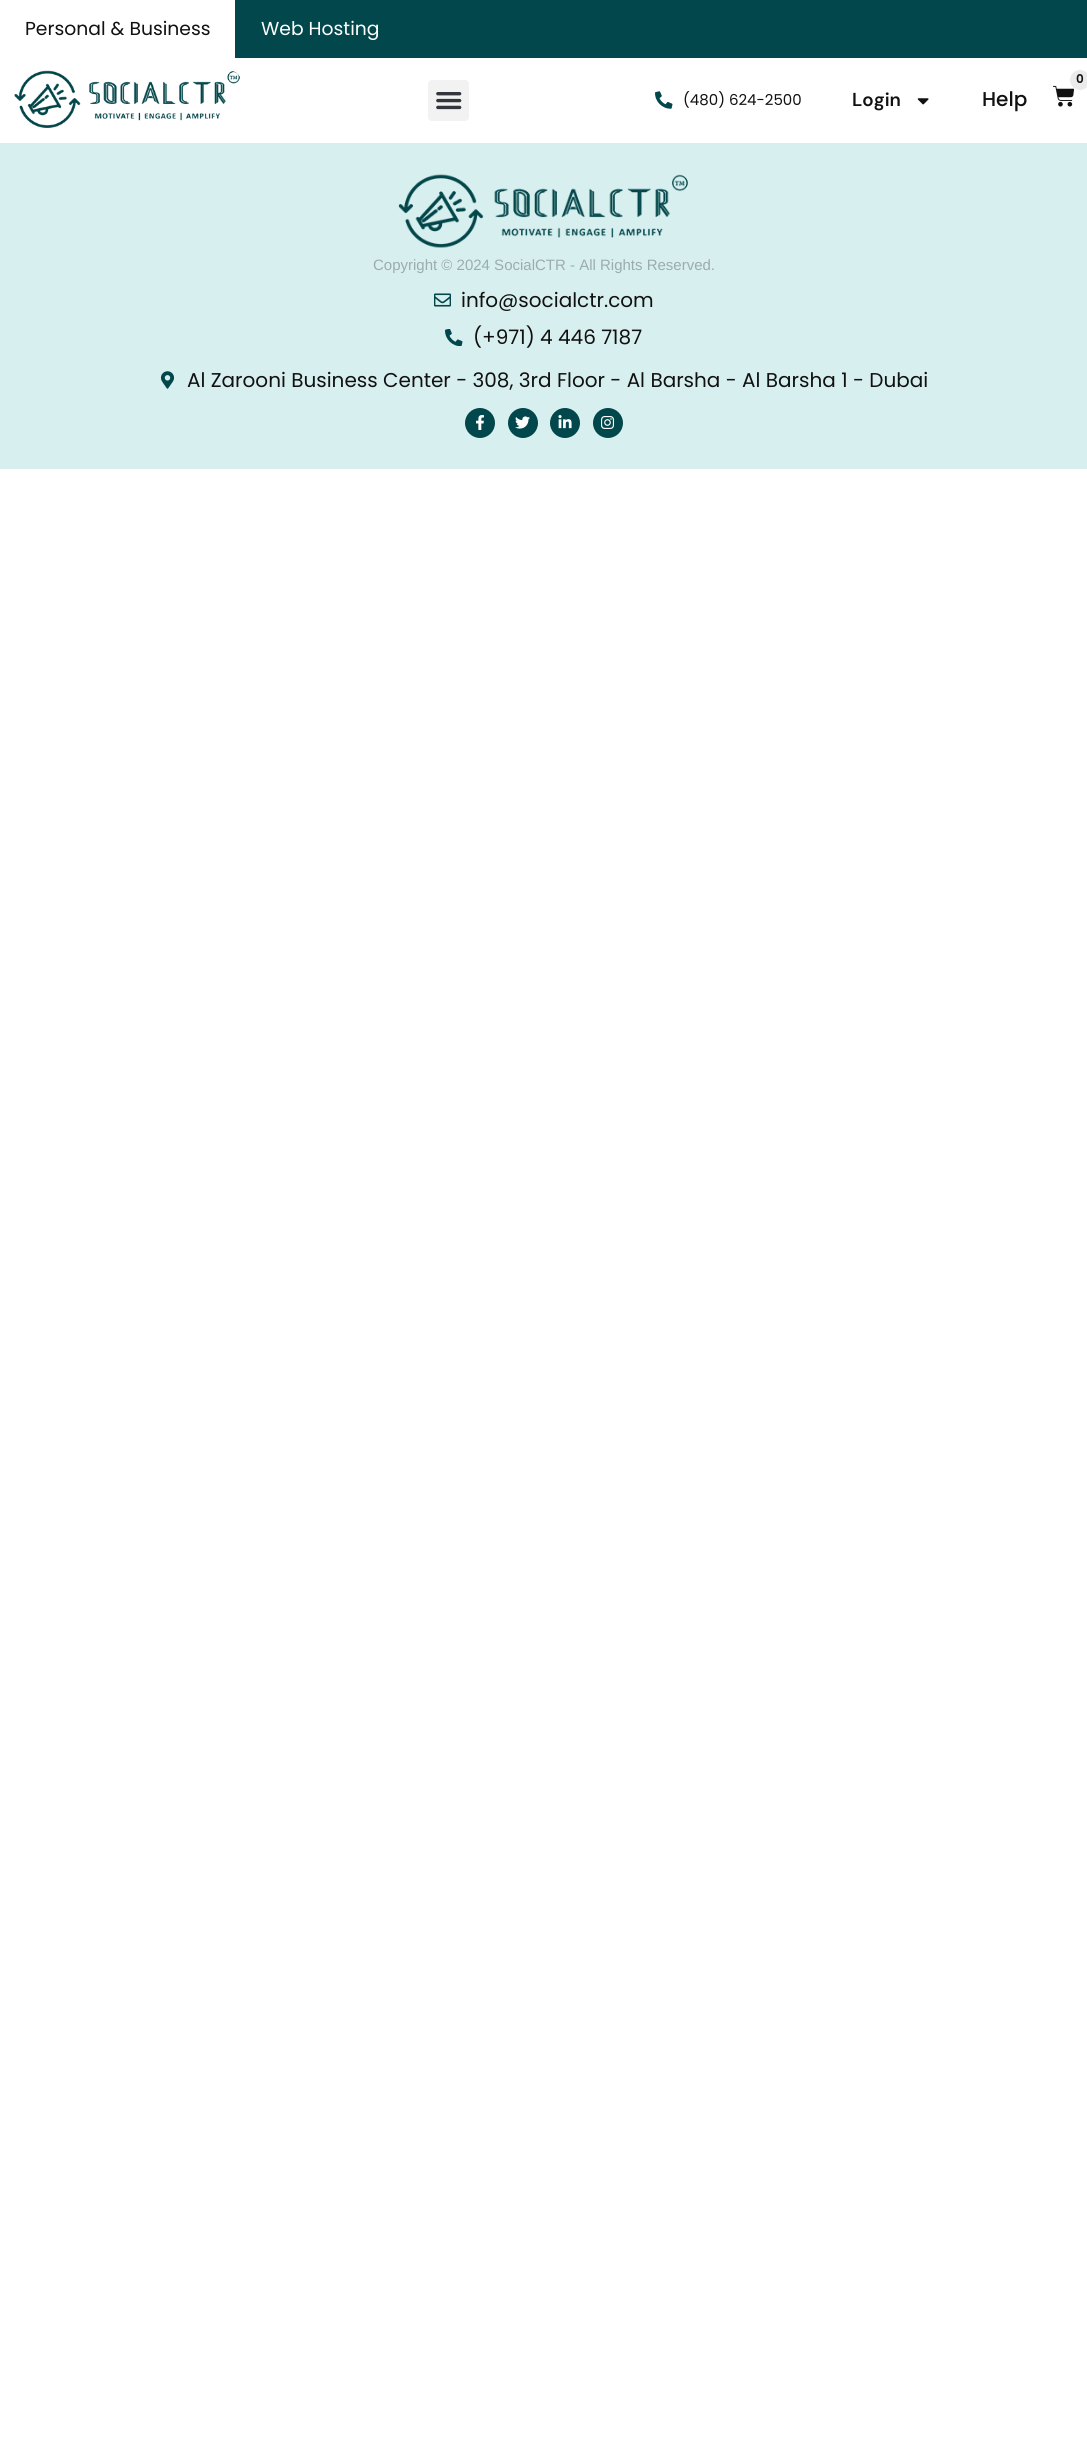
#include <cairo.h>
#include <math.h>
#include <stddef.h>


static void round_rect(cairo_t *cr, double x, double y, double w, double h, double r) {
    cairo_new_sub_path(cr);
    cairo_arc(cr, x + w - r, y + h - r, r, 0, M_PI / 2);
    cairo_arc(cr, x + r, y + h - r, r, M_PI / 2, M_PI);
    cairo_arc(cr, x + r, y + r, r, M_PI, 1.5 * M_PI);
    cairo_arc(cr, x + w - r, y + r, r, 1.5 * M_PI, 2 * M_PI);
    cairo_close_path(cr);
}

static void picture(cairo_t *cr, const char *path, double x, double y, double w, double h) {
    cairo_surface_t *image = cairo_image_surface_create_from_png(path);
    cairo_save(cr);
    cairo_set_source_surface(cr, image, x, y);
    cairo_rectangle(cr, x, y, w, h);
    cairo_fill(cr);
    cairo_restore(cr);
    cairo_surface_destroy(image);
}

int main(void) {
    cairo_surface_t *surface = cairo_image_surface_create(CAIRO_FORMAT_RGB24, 1087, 2449);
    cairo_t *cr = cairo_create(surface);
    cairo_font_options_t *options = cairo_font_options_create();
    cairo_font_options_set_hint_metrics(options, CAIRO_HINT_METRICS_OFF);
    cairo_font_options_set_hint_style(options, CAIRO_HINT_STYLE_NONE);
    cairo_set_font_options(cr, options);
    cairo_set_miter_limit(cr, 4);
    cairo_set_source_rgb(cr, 1, 1, 1);
    cairo_paint(cr);
    cairo_set_source_rgb(cr, 0.008, 0.278, 0.298);
    cairo_rectangle(cr, 235, 0, 852, 58);
    cairo_fill(cr);
    cairo_select_font_face(cr, "Poppins", CAIRO_FONT_SLANT_NORMAL, CAIRO_FONT_WEIGHT_NORMAL);
    cairo_set_font_size(cr, 18.75);
    cairo_set_source_rgb(cr, 0.067, 0.067, 0.067);
    cairo_move_to(cr, 25, 35);
    cairo_show_text(cr, "Personal & Business");
    cairo_set_source_rgb(cr, 1, 1, 1);
    cairo_move_to(cr, 261, 35);
    cairo_show_text(cr, "Web Hosting");
    picture(cr, "img1.png", 14, 70, 226, 58);
    cairo_set_source_rgb(cr, 0.949, 0.949, 0.949);
    round_rect(cr, 428, 80, 41, 41, 4);
    cairo_fill(cr);
    picture(cr, "img2.png", 436, 92, 26, 18);
    picture(cr, "img3.png", 1053, 85, 21, 22);
    cairo_set_source_rgb(cr, 0.918, 0.918, 0.918);
    cairo_arc(cr, 1080, 80, 10, 0, 2 * M_PI);
    cairo_fill(cr);
    cairo_select_font_face(cr, "Poppins SemiBold", CAIRO_FONT_SLANT_NORMAL, CAIRO_FONT_WEIGHT_NORMAL);
    cairo_set_font_size(cr, 12);
    cairo_set_source_rgb(cr, 0.067, 0.067, 0.067);
    cairo_move_to(cr, 1076, 83);
    cairo_show_text(cr, "0");
    picture(cr, "img4.png", 655, 91, 18, 18);
    cairo_select_font_face(cr, "Poppins", CAIRO_FONT_SLANT_NORMAL, CAIRO_FONT_WEIGHT_NORMAL);
    cairo_set_font_size(cr, 15);
    cairo_move_to(cr, 683, 105);
    cairo_show_text(cr, "(480) 624-2500");
    cairo_select_font_face(cr, "DM Sans SemiBold", CAIRO_FONT_SLANT_NORMAL, CAIRO_FONT_WEIGHT_NORMAL);
    cairo_set_font_size(cr, 18.75);
    cairo_move_to(cr, 852, 106);
    cairo_show_text(cr, "Login");
    picture(cr, "img5.png", 917, 98, 12, 7);
    cairo_select_font_face(cr, "Poppins Medium", CAIRO_FONT_SLANT_NORMAL, CAIRO_FONT_WEIGHT_NORMAL);
    cairo_set_font_size(cr, 20);
    cairo_move_to(cr, 982, 106);
    cairo_show_text(cr, "Help");
    cairo_set_source_rgb(cr, 0.847, 0.937, 0.937);
    cairo_rectangle(cr, 0, 143, 1087, 326);
    cairo_fill(cr);
    picture(cr, "img6.png", 398, 174, 290, 74);
    cairo_select_font_face(cr, "Liberation Sans", CAIRO_FONT_SLANT_NORMAL, CAIRO_FONT_WEIGHT_NORMAL);
    cairo_set_font_size(cr, 15);
    cairo_set_source_rgb(cr, 0.612, 0.675, 0.675);
    cairo_move_to(cr, 373, 270);
    cairo_show_text(cr, "Copyright © 2024 SocialCTR - All Rights Reserved.");
    picture(cr, "img7.png", 434, 293, 17, 14);
    cairo_select_font_face(cr, "Poppins", CAIRO_FONT_SLANT_NORMAL, CAIRO_FONT_WEIGHT_NORMAL);
    cairo_set_font_size(cr, 20);
    cairo_set_source_rgb(cr, 0.067, 0.067, 0.067);
    cairo_move_to(cr, 461, 307);
    cairo_show_text(cr, "info@socialctr.com");
    picture(cr, "img8.png", 445, 329, 18, 17);
    cairo_move_to(cr, 473, 344);
    cairo_show_text(cr, "(+971) 4 446 7187");
    picture(cr, "img9.png", 160, 371, 15, 18);
    cairo_move_to(cr, 187, 387);
    cairo_show_text(cr, "Al Zarooni Business Center - 308, 3rd Floor - Al Barsha - Al Barsha 1 - Dubai");
    cairo_set_source_rgb(cr, 0.008, 0.278, 0.298);
    cairo_new_path(cr);
    cairo_arc(cr, 480, 423, 15, 0, 2 * M_PI);
    cairo_fill(cr);
    picture(cr, "img10.png", 476, 415, 8, 15);
    cairo_arc(cr, 523, 423, 15, 0, 2 * M_PI);
    cairo_fill(cr);
    picture(cr, "img11.png", 515, 416, 15, 13);
    cairo_arc(cr, 565, 423, 15, 0, 2 * M_PI);
    cairo_fill(cr);
    picture(cr, "img12.png", 558, 415, 14, 14);
    cairo_arc(cr, 608, 423, 15, 0, 2 * M_PI);
    cairo_fill(cr);
    picture(cr, "img13.png", 601, 416, 14, 13);
    cairo_surface_write_to_png(surface, "page.png");
    cairo_font_options_destroy(options);
    cairo_destroy(cr);
    cairo_surface_destroy(surface);
    return 0;
}
